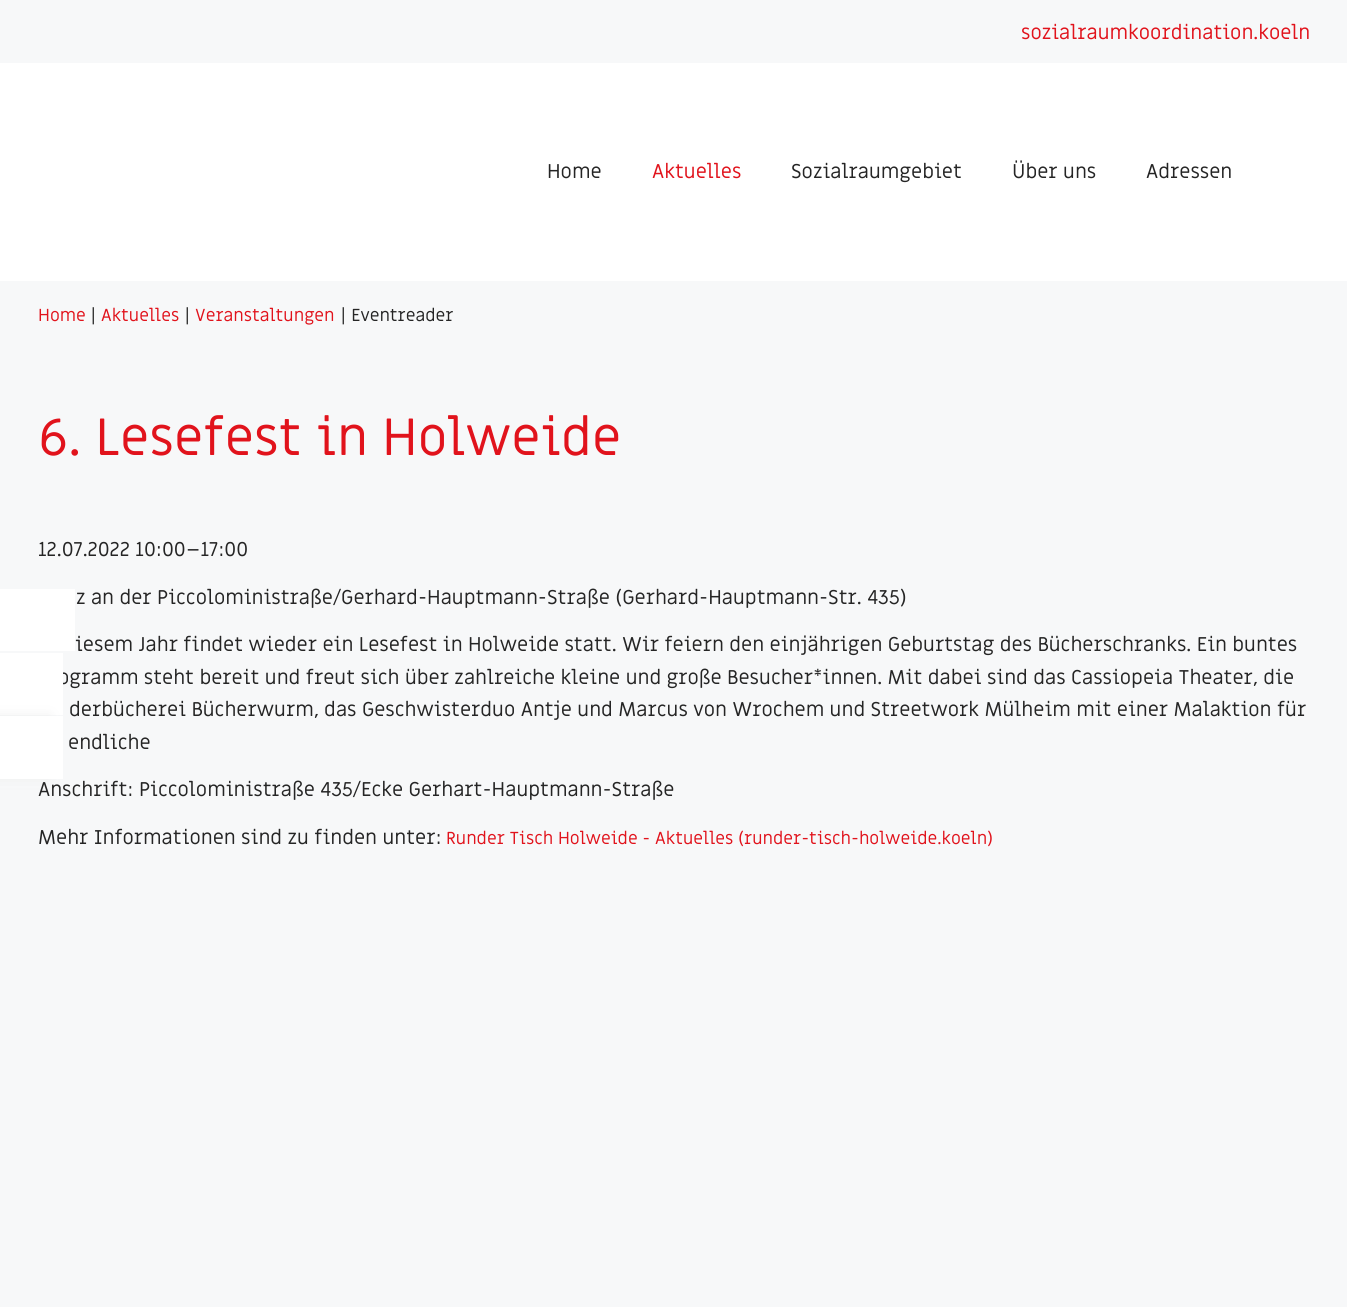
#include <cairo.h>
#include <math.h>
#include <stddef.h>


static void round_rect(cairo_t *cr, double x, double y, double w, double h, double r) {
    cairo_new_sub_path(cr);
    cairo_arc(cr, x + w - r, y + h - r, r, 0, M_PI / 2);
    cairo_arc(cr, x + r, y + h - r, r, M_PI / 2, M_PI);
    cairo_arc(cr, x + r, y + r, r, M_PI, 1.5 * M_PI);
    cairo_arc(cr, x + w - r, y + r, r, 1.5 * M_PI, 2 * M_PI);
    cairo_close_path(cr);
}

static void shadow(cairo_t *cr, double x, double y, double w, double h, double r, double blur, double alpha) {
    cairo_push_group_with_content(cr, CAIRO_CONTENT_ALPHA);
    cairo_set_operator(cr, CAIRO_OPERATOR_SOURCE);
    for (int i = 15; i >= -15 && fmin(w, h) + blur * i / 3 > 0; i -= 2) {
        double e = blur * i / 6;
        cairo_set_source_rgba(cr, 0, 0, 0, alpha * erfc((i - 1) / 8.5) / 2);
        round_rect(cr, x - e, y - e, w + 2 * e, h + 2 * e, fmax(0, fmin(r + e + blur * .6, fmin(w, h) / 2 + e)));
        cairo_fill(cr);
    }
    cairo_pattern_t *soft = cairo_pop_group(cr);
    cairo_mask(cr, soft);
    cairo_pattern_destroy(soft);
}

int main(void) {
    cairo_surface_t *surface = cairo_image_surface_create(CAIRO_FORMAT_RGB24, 1347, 1307);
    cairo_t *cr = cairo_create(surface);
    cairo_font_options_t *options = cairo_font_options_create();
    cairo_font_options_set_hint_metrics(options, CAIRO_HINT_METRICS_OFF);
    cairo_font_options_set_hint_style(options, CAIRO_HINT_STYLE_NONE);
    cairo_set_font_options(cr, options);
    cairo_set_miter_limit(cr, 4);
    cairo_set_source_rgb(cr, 0.965, 0.969, 0.976);
    cairo_paint(cr);
    cairo_select_font_face(cr, "Miriam Libre", CAIRO_FONT_SLANT_NORMAL, CAIRO_FONT_WEIGHT_NORMAL);
    cairo_set_font_size(cr, 20);
    cairo_set_source_rgb(cr, 0.882, 0.078, 0.11);
    cairo_move_to(cr, 1021, 39);
    cairo_show_text(cr, "sozialraumkoordination.koeln");
    cairo_set_source_rgb(cr, 1, 1, 1);
    cairo_rectangle(cr, 0, 589, 75, 62);
    cairo_fill(cr);
    cairo_set_source_rgb(cr, 0.145, 0.145, 0.145);
    cairo_move_to(cr, 58, 684);
    cairo_show_text(cr, "ogramm steht bereit und freut sich über zahlreiche kleine und große Besucher*innen. Mit dabei sind das Cassiopeia Theater, die");
    cairo_set_source_rgb(cr, 1, 1, 1);
    cairo_rectangle(cr, 0, 653, 63, 62);
    cairo_fill(cr);
    cairo_rectangle(cr, 0, 716, 63, 63);
    cairo_fill(cr);
    cairo_save(cr);
    cairo_set_fill_rule(cr, CAIRO_FILL_RULE_EVEN_ODD);
    cairo_new_path(cr);
    cairo_move_to(cr, 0, 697);
    cairo_line_to(cr, 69, 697);
    cairo_line_to(cr, 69, 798);
    cairo_line_to(cr, 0, 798);
    cairo_close_path(cr);
    cairo_move_to(cr, 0, 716);
    cairo_line_to(cr, 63, 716);
    cairo_line_to(cr, 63, 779);
    cairo_line_to(cr, 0, 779);
    cairo_close_path(cr);
    cairo_clip(cr);
    cairo_set_source_rgb(cr, 0.937, 0.937, 0.937);
    shadow(cr, -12, 716, 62, 63, 0, 6, 1);
    cairo_restore(cr);
    cairo_rectangle(cr, 0, 63, 1347, 218);
    cairo_fill(cr);
    cairo_set_source_rgb(cr, 0.145, 0.145, 0.145);
    cairo_move_to(cr, 547, 178);
    cairo_show_text(cr, "Home");
    cairo_set_source_rgb(cr, 0.882, 0.078, 0.11);
    cairo_move_to(cr, 652, 178);
    cairo_show_text(cr, "Aktuelles");
    cairo_set_source_rgb(cr, 0.145, 0.145, 0.145);
    cairo_move_to(cr, 791, 178);
    cairo_show_text(cr, "Sozialraumgebiet");
    cairo_move_to(cr, 1012, 178);
    cairo_show_text(cr, "Über uns");
    cairo_move_to(cr, 1146, 178);
    cairo_show_text(cr, "Adressen");
    cairo_set_font_size(cr, 17.5);
    cairo_set_source_rgb(cr, 0.882, 0.078, 0.11);
    cairo_move_to(cr, 38, 321);
    cairo_show_text(cr, "Home");
    cairo_set_source_rgb(cr, 0.145, 0.145, 0.145);
    cairo_move_to(cr, 90, 321);
    cairo_show_text(cr, "|");
    cairo_set_source_rgb(cr, 0.882, 0.078, 0.11);
    cairo_move_to(cr, 101, 321);
    cairo_show_text(cr, "Aktuelles");
    cairo_set_source_rgb(cr, 0.145, 0.145, 0.145);
    cairo_move_to(cr, 184, 321);
    cairo_show_text(cr, "|");
    cairo_set_source_rgb(cr, 0.882, 0.078, 0.11);
    cairo_move_to(cr, 195, 321);
    cairo_show_text(cr, "Veranstaltungen");
    cairo_set_source_rgb(cr, 0.145, 0.145, 0.145);
    cairo_move_to(cr, 340, 321);
    cairo_show_text(cr, "| Eventreader");
    cairo_set_font_size(cr, 52.5);
    cairo_set_source_rgb(cr, 0.882, 0.078, 0.11);
    cairo_move_to(cr, 38, 455);
    cairo_show_text(cr, "6. Lesefest in Holweide");
    cairo_set_font_size(cr, 20);
    cairo_set_source_rgb(cr, 0.145, 0.145, 0.145);
    cairo_move_to(cr, 38, 556);
    cairo_show_text(cr, "12.07.2022 10:00–17:00");
    cairo_move_to(cr, 76, 604);
    cairo_show_text(cr, "z an der Piccoloministraße/Gerhard-Hauptmann-Straße (Gerhard-Hauptmann-Str. 435)");
    cairo_move_to(cr, 75, 651);
    cairo_show_text(cr, "iesem Jahr findet wieder ein Lesefest in Holweide statt. Wir feiern den einjährigen Geburtstag des Bücherschranks. Ein buntes");
    cairo_move_to(cr, 69, 716);
    cairo_show_text(cr, "derbücherei Bücherwurm, das Geschwisterduo Antje und Marcus von Wrochem und Streetwork Mülheim mit einer Malaktion für");
    cairo_move_to(cr, 68, 749);
    cairo_show_text(cr, "endliche");
    cairo_move_to(cr, 38, 796);
    cairo_show_text(cr, "Anschrift: Piccoloministraße 435/Ecke Gerhart-Hauptmann-Straße");
    cairo_move_to(cr, 38, 844);
    cairo_show_text(cr, "Mehr Informationen sind zu finden unter:");
    cairo_set_font_size(cr, 17.5);
    cairo_set_source_rgb(cr, 0.882, 0.078, 0.11);
    cairo_move_to(cr, 446, 844);
    cairo_show_text(cr, "Runder Tisch Holweide - Aktuelles (runder-tisch-holweide.koeln)");
    cairo_surface_write_to_png(surface, "page.png");
    cairo_font_options_destroy(options);
    cairo_destroy(cr);
    cairo_surface_destroy(surface);
    return 0;
}
